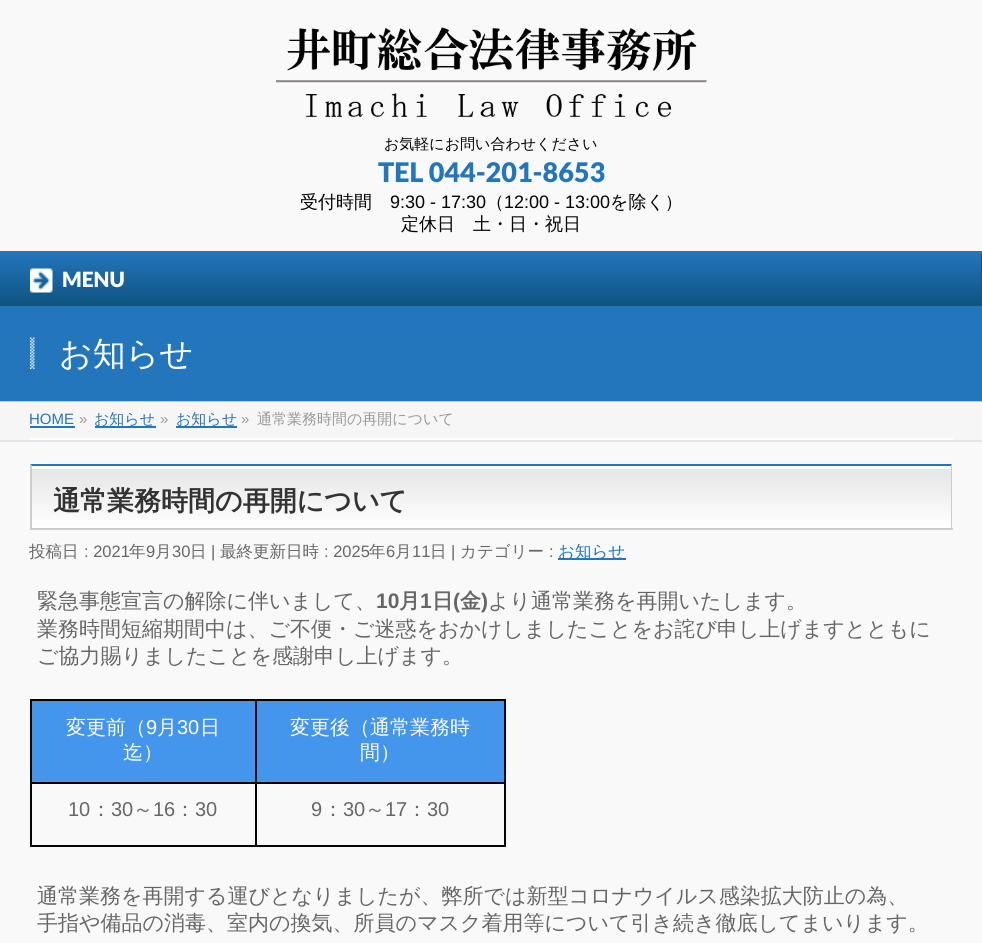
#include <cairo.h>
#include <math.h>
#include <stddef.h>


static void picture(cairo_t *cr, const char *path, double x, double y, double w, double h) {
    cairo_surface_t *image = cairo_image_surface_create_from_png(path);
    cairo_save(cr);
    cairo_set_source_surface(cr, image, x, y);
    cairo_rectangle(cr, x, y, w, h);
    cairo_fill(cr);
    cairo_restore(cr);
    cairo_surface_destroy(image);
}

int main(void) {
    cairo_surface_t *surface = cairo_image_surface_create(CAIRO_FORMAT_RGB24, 982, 943);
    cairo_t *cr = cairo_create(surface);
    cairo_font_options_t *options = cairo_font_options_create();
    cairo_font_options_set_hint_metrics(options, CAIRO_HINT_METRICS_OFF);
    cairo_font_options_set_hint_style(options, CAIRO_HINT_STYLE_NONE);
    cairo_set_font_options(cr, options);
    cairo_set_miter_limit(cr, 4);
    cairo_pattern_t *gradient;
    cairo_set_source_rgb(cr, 0.976, 0.976, 0.976);
    cairo_paint(cr);
    picture(cr, "img1.png", 276, 27, 431, 90);
    cairo_select_font_face(cr, "WenQuanYi Zen Hei Medium", CAIRO_FONT_SLANT_NORMAL, CAIRO_FONT_WEIGHT_NORMAL);
    cairo_set_font_size(cr, 15);
    cairo_set_source_rgb(cr, 0, 0, 0);
    cairo_move_to(cr, 384, 149);
    cairo_show_text(cr, "お気軽にお問い合わせください");
    cairo_select_font_face(cr, "Lato Black", CAIRO_FONT_SLANT_NORMAL, CAIRO_FONT_WEIGHT_NORMAL);
    cairo_set_font_size(cr, 27);
    cairo_set_source_rgb(cr, 0.137, 0.459, 0.737);
    cairo_move_to(cr, 378, 182);
    cairo_show_text(cr, "TEL 044-201-8653");
    cairo_select_font_face(cr, "WenQuanYi Zen Hei Medium", CAIRO_FONT_SLANT_NORMAL, CAIRO_FONT_WEIGHT_NORMAL);
    cairo_set_font_size(cr, 18);
    cairo_set_source_rgb(cr, 0, 0, 0);
    cairo_move_to(cr, 300, 208);
    cairo_show_text(cr, "受付時間");
    cairo_select_font_face(cr, "Liberation Sans", CAIRO_FONT_SLANT_NORMAL, CAIRO_FONT_WEIGHT_NORMAL);
    cairo_move_to(cr, 390, 208);
    cairo_show_text(cr, "9:30 - 17:30");
    cairo_select_font_face(cr, "WenQuanYi Zen Hei Medium", CAIRO_FONT_SLANT_NORMAL, CAIRO_FONT_WEIGHT_NORMAL);
    cairo_move_to(cr, 486, 208);
    cairo_show_text(cr, "（");
    cairo_select_font_face(cr, "Liberation Sans", CAIRO_FONT_SLANT_NORMAL, CAIRO_FONT_WEIGHT_NORMAL);
    cairo_move_to(cr, 504, 208);
    cairo_show_text(cr, "12:00 - 13:00");
    cairo_select_font_face(cr, "WenQuanYi Zen Hei Medium", CAIRO_FONT_SLANT_NORMAL, CAIRO_FONT_WEIGHT_NORMAL);
    cairo_move_to(cr, 610, 208);
    cairo_show_text(cr, "を除く）");
    cairo_move_to(cr, 401, 230);
    cairo_show_text(cr, "定休日　土・日・祝日");
    cairo_set_source_rgb(cr, 0.137, 0.459, 0.737);
    cairo_rectangle(cr, 0, 251, 982, 3);
    cairo_fill(cr);
    gradient = cairo_pattern_create_linear(491, 253, 491, 306);
    cairo_pattern_add_color_stop_rgba(gradient, 0, 0.137, 0.459, 0.737, 1);
    cairo_pattern_add_color_stop_rgba(gradient, 1, 0.059, 0.325, 0.498, 1);
    cairo_set_source(cr, gradient);
    cairo_pattern_destroy(gradient);
    cairo_rectangle(cr, 0, 254, 981, 52);
    cairo_fill(cr);
    cairo_set_source_rgb(cr, 0.059, 0.325, 0.498);
    cairo_rectangle(cr, 981, 254, 1, 52);
    cairo_fill(cr);
    picture(cr, "img2.png", 30, 268, 23, 25);
    cairo_select_font_face(cr, "Lato Black", CAIRO_FONT_SLANT_NORMAL, CAIRO_FONT_WEIGHT_NORMAL);
    cairo_set_font_size(cr, 21);
    cairo_set_source_rgb(cr, 1, 1, 1);
    cairo_move_to(cr, 62, 287);
    cairo_show_text(cr, "MENU");
    cairo_set_source_rgb(cr, 0.137, 0.459, 0.737);
    cairo_rectangle(cr, 0, 306, 982, 95);
    cairo_fill(cr);
    cairo_set_source_rgb(cr, 0.8, 0.8, 0.8);
    cairo_rectangle(cr, 0, 401, 982, 1);
    cairo_fill(cr);
    picture(cr, "img3.png", 30, 337, 5, 32);
    cairo_select_font_face(cr, "WenQuanYi Zen Hei Medium", CAIRO_FONT_SLANT_NORMAL, CAIRO_FONT_WEIGHT_NORMAL);
    cairo_set_font_size(cr, 33);
    cairo_set_source_rgb(cr, 1, 1, 1);
    cairo_move_to(cr, 59, 365);
    cairo_show_text(cr, "お知らせ");
    cairo_set_source_rgb(cr, 0.961, 0.961, 0.961);
    cairo_rectangle(cr, 0, 402, 982, 38);
    cairo_fill(cr);
    cairo_set_source_rgb(cr, 0.898, 0.898, 0.898);
    cairo_rectangle(cr, 0, 440, 982, 2);
    cairo_fill(cr);
    cairo_set_source_rgb(cr, 1, 1, 1);
    cairo_rectangle(cr, 30, 438, 923, 2);
    cairo_fill(cr);
    cairo_select_font_face(cr, "Liberation Sans", CAIRO_FONT_SLANT_NORMAL, CAIRO_FONT_WEIGHT_NORMAL);
    cairo_set_font_size(cr, 15);
    cairo_set_source_rgb(cr, 0.137, 0.459, 0.737);
    cairo_move_to(cr, 29, 424);
    cairo_show_text(cr, "HOME");
    cairo_rectangle(cr, 30, 426, 45, 2);
    cairo_fill(cr);
    cairo_set_source_rgb(cr, 0.6, 0.6, 0.6);
    cairo_move_to(cr, 79, 424);
    cairo_show_text(cr, "»");
    cairo_set_source_rgb(cr, 0.137, 0.459, 0.737);
    cairo_rectangle(cr, 95, 426, 61, 2);
    cairo_fill(cr);
    cairo_select_font_face(cr, "WenQuanYi Zen Hei Medium", CAIRO_FONT_SLANT_NORMAL, CAIRO_FONT_WEIGHT_NORMAL);
    cairo_move_to(cr, 94, 424);
    cairo_show_text(cr, "お知らせ");
    cairo_select_font_face(cr, "Liberation Sans", CAIRO_FONT_SLANT_NORMAL, CAIRO_FONT_WEIGHT_NORMAL);
    cairo_set_source_rgb(cr, 0.6, 0.6, 0.6);
    cairo_move_to(cr, 160, 424);
    cairo_show_text(cr, "»");
    cairo_set_source_rgb(cr, 0.137, 0.459, 0.737);
    cairo_rectangle(cr, 176, 426, 61, 2);
    cairo_fill(cr);
    cairo_select_font_face(cr, "WenQuanYi Zen Hei Medium", CAIRO_FONT_SLANT_NORMAL, CAIRO_FONT_WEIGHT_NORMAL);
    cairo_move_to(cr, 176, 424);
    cairo_show_text(cr, "お知らせ");
    cairo_select_font_face(cr, "Liberation Sans", CAIRO_FONT_SLANT_NORMAL, CAIRO_FONT_WEIGHT_NORMAL);
    cairo_set_source_rgb(cr, 0.6, 0.6, 0.6);
    cairo_move_to(cr, 241, 424);
    cairo_show_text(cr, "»");
    cairo_select_font_face(cr, "WenQuanYi Zen Hei Medium", CAIRO_FONT_SLANT_NORMAL, CAIRO_FONT_WEIGHT_NORMAL);
    cairo_move_to(cr, 257, 424);
    cairo_show_text(cr, "通常業務時間の再開について");
    gradient = cairo_pattern_create_linear(32, 467, 32, 528);
    cairo_pattern_add_color_stop_rgba(gradient, 0, 0.898, 0.898, 0.898, 1);
    cairo_pattern_add_color_stop_rgba(gradient, 1, 1, 1, 1, 1);
    cairo_set_source(cr, gradient);
    cairo_pattern_destroy(gradient);
    cairo_rectangle(cr, 32, 469, 919, 59);
    cairo_fill(cr);
    cairo_set_source_rgb(cr, 1, 1, 1);
    cairo_rectangle(cr, 32, 467, 919, 2);
    cairo_fill(cr);
    cairo_set_source_rgb(cr, 0.137, 0.459, 0.737);
    cairo_new_path(cr);
    cairo_move_to(cr, 30, 464);
    cairo_line_to(cr, 952, 464);
    cairo_line_to(cr, 951, 466);
    cairo_line_to(cr, 32, 466);
    cairo_close_path(cr);
    cairo_fill(cr);
    cairo_set_source_rgb(cr, 0.8, 0.8, 0.8);
    cairo_new_path(cr);
    cairo_move_to(cr, 952, 464);
    cairo_line_to(cr, 952, 530);
    cairo_line_to(cr, 951, 528);
    cairo_line_to(cr, 951, 466);
    cairo_close_path(cr);
    cairo_fill(cr);
    cairo_rectangle(cr, 30, 528, 923, 2);
    cairo_fill(cr);
    cairo_new_path(cr);
    cairo_move_to(cr, 30, 530);
    cairo_line_to(cr, 30, 464);
    cairo_line_to(cr, 32, 466);
    cairo_line_to(cr, 32, 528);
    cairo_close_path(cr);
    cairo_fill(cr);
    cairo_select_font_face(cr, "WenQuanYi Zen Hei", CAIRO_FONT_SLANT_NORMAL, CAIRO_FONT_WEIGHT_BOLD);
    cairo_set_font_size(cr, 27);
    cairo_set_source_rgb(cr, 0.2, 0.2, 0.2);
    cairo_move_to(cr, 53, 510);
    cairo_show_text(cr, "通常業務時間の再開について");
    cairo_select_font_face(cr, "WenQuanYi Zen Hei Medium", CAIRO_FONT_SLANT_NORMAL, CAIRO_FONT_WEIGHT_NORMAL);
    cairo_set_font_size(cr, 16.5);
    cairo_set_source_rgb(cr, 0.4, 0.4, 0.4);
    cairo_move_to(cr, 29, 557);
    cairo_show_text(cr, "投稿日");
    cairo_select_font_face(cr, "Liberation Sans", CAIRO_FONT_SLANT_NORMAL, CAIRO_FONT_WEIGHT_NORMAL);
    cairo_move_to(cr, 84, 557);
    cairo_show_text(cr, ": 2021");
    cairo_select_font_face(cr, "WenQuanYi Zen Hei Medium", CAIRO_FONT_SLANT_NORMAL, CAIRO_FONT_WEIGHT_NORMAL);
    cairo_move_to(cr, 129, 557);
    cairo_show_text(cr, "年");
    cairo_select_font_face(cr, "Liberation Sans", CAIRO_FONT_SLANT_NORMAL, CAIRO_FONT_WEIGHT_NORMAL);
    cairo_move_to(cr, 146, 557);
    cairo_show_text(cr, "9");
    cairo_select_font_face(cr, "WenQuanYi Zen Hei Medium", CAIRO_FONT_SLANT_NORMAL, CAIRO_FONT_WEIGHT_NORMAL);
    cairo_move_to(cr, 155, 557);
    cairo_show_text(cr, "月");
    cairo_select_font_face(cr, "Liberation Sans", CAIRO_FONT_SLANT_NORMAL, CAIRO_FONT_WEIGHT_NORMAL);
    cairo_move_to(cr, 172, 557);
    cairo_show_text(cr, "30");
    cairo_select_font_face(cr, "WenQuanYi Zen Hei Medium", CAIRO_FONT_SLANT_NORMAL, CAIRO_FONT_WEIGHT_NORMAL);
    cairo_move_to(cr, 190, 557);
    cairo_show_text(cr, "日");
    cairo_select_font_face(cr, "Liberation Sans", CAIRO_FONT_SLANT_NORMAL, CAIRO_FONT_WEIGHT_NORMAL);
    cairo_move_to(cr, 211, 557);
    cairo_show_text(cr, "|");
    cairo_select_font_face(cr, "WenQuanYi Zen Hei Medium", CAIRO_FONT_SLANT_NORMAL, CAIRO_FONT_WEIGHT_NORMAL);
    cairo_move_to(cr, 220, 557);
    cairo_show_text(cr, "最終更新日時");
    cairo_select_font_face(cr, "Liberation Sans", CAIRO_FONT_SLANT_NORMAL, CAIRO_FONT_WEIGHT_NORMAL);
    cairo_move_to(cr, 324, 557);
    cairo_show_text(cr, ": 2025");
    cairo_select_font_face(cr, "WenQuanYi Zen Hei Medium", CAIRO_FONT_SLANT_NORMAL, CAIRO_FONT_WEIGHT_NORMAL);
    cairo_move_to(cr, 369, 557);
    cairo_show_text(cr, "年");
    cairo_select_font_face(cr, "Liberation Sans", CAIRO_FONT_SLANT_NORMAL, CAIRO_FONT_WEIGHT_NORMAL);
    cairo_move_to(cr, 386, 557);
    cairo_show_text(cr, "6");
    cairo_select_font_face(cr, "WenQuanYi Zen Hei Medium", CAIRO_FONT_SLANT_NORMAL, CAIRO_FONT_WEIGHT_NORMAL);
    cairo_move_to(cr, 395, 557);
    cairo_show_text(cr, "月");
    cairo_select_font_face(cr, "Liberation Sans", CAIRO_FONT_SLANT_NORMAL, CAIRO_FONT_WEIGHT_NORMAL);
    cairo_move_to(cr, 412, 557);
    cairo_show_text(cr, "11");
    cairo_select_font_face(cr, "WenQuanYi Zen Hei Medium", CAIRO_FONT_SLANT_NORMAL, CAIRO_FONT_WEIGHT_NORMAL);
    cairo_move_to(cr, 430, 557);
    cairo_show_text(cr, "日");
    cairo_select_font_face(cr, "Liberation Sans", CAIRO_FONT_SLANT_NORMAL, CAIRO_FONT_WEIGHT_NORMAL);
    cairo_move_to(cr, 451, 557);
    cairo_show_text(cr, "|");
    cairo_select_font_face(cr, "WenQuanYi Zen Hei Medium", CAIRO_FONT_SLANT_NORMAL, CAIRO_FONT_WEIGHT_NORMAL);
    cairo_move_to(cr, 460, 557);
    cairo_show_text(cr, "カテゴリー");
    cairo_select_font_face(cr, "Liberation Sans", CAIRO_FONT_SLANT_NORMAL, CAIRO_FONT_WEIGHT_NORMAL);
    cairo_move_to(cr, 549, 557);
    cairo_show_text(cr, ":");
    cairo_set_source_rgb(cr, 0.137, 0.459, 0.737);
    cairo_rectangle(cr, 558, 558, 68, 2);
    cairo_fill(cr);
    cairo_select_font_face(cr, "WenQuanYi Zen Hei Medium", CAIRO_FONT_SLANT_NORMAL, CAIRO_FONT_WEIGHT_NORMAL);
    cairo_move_to(cr, 558, 557);
    cairo_show_text(cr, "お知らせ");
    cairo_set_font_size(cr, 21);
    cairo_set_source_rgb(cr, 0.4, 0.4, 0.4);
    cairo_move_to(cr, 37, 608);
    cairo_show_text(cr, "緊急事態宣言の解除に伴いまして、");
    cairo_select_font_face(cr, "Liberation Sans", CAIRO_FONT_SLANT_NORMAL, CAIRO_FONT_WEIGHT_BOLD);
    cairo_move_to(cr, 376, 608);
    cairo_show_text(cr, "10");
    cairo_select_font_face(cr, "WenQuanYi Zen Hei", CAIRO_FONT_SLANT_NORMAL, CAIRO_FONT_WEIGHT_BOLD);
    cairo_move_to(cr, 399, 608);
    cairo_show_text(cr, "月");
    cairo_select_font_face(cr, "Liberation Sans", CAIRO_FONT_SLANT_NORMAL, CAIRO_FONT_WEIGHT_BOLD);
    cairo_move_to(cr, 420, 608);
    cairo_show_text(cr, "1");
    cairo_select_font_face(cr, "WenQuanYi Zen Hei", CAIRO_FONT_SLANT_NORMAL, CAIRO_FONT_WEIGHT_BOLD);
    cairo_move_to(cr, 432, 608);
    cairo_show_text(cr, "日");
    cairo_select_font_face(cr, "Liberation Sans", CAIRO_FONT_SLANT_NORMAL, CAIRO_FONT_WEIGHT_BOLD);
    cairo_move_to(cr, 453, 608);
    cairo_show_text(cr, "(");
    cairo_select_font_face(cr, "WenQuanYi Zen Hei", CAIRO_FONT_SLANT_NORMAL, CAIRO_FONT_WEIGHT_BOLD);
    cairo_move_to(cr, 460, 608);
    cairo_show_text(cr, "金");
    cairo_select_font_face(cr, "Liberation Sans", CAIRO_FONT_SLANT_NORMAL, CAIRO_FONT_WEIGHT_BOLD);
    cairo_move_to(cr, 481, 608);
    cairo_show_text(cr, ")");
    cairo_select_font_face(cr, "WenQuanYi Zen Hei Medium", CAIRO_FONT_SLANT_NORMAL, CAIRO_FONT_WEIGHT_NORMAL);
    cairo_move_to(cr, 488, 608);
    cairo_show_text(cr, "より通常業務を再開いたします。");
    cairo_move_to(cr, 37, 636);
    cairo_show_text(cr, "業務時間短縮期間中は、ご不便・ご迷惑をおかけしましたことをお詫び申し上げますとともに");
    cairo_move_to(cr, 37, 663);
    cairo_show_text(cr, "ご協力賜りましたことを感謝申し上げます。");
    cairo_set_source_rgb(cr, 0.267, 0.584, 0.922);
    cairo_rectangle(cr, 32, 701, 223, 81);
    cairo_fill(cr);
    cairo_set_source_rgb(cr, 0.02, 0.02, 0.02);
    cairo_rectangle(cr, 255, 699, 251, 2);
    cairo_fill(cr);
    cairo_rectangle(cr, 255, 782, 251, 2);
    cairo_fill(cr);
    cairo_rectangle(cr, 504, 782, 2, 64);
    cairo_fill(cr);
    cairo_rectangle(cr, 255, 845, 251, 2);
    cairo_fill(cr);
    cairo_rectangle(cr, 255, 782, 2, 64);
    cairo_fill(cr);
    cairo_rectangle(cr, 30, 782, 227, 2);
    cairo_fill(cr);
    cairo_rectangle(cr, 255, 699, 2, 84);
    cairo_fill(cr);
    cairo_rectangle(cr, 30, 699, 227, 2);
    cairo_fill(cr);
    cairo_rectangle(cr, 30, 845, 227, 2);
    cairo_fill(cr);
    cairo_rectangle(cr, 30, 782, 2, 64);
    cairo_fill(cr);
    cairo_rectangle(cr, 30, 699, 2, 84);
    cairo_fill(cr);
    cairo_set_font_size(cr, 20);
    cairo_set_source_rgb(cr, 1, 1, 1);
    cairo_move_to(cr, 66, 734);
    cairo_show_text(cr, "変更前（");
    cairo_select_font_face(cr, "Liberation Sans", CAIRO_FONT_SLANT_NORMAL, CAIRO_FONT_WEIGHT_NORMAL);
    cairo_move_to(cr, 146, 734);
    cairo_show_text(cr, "9");
    cairo_select_font_face(cr, "WenQuanYi Zen Hei Medium", CAIRO_FONT_SLANT_NORMAL, CAIRO_FONT_WEIGHT_NORMAL);
    cairo_move_to(cr, 157, 734);
    cairo_show_text(cr, "月");
    cairo_select_font_face(cr, "Liberation Sans", CAIRO_FONT_SLANT_NORMAL, CAIRO_FONT_WEIGHT_NORMAL);
    cairo_move_to(cr, 177, 734);
    cairo_show_text(cr, "30");
    cairo_select_font_face(cr, "WenQuanYi Zen Hei Medium", CAIRO_FONT_SLANT_NORMAL, CAIRO_FONT_WEIGHT_NORMAL);
    cairo_move_to(cr, 200, 734);
    cairo_show_text(cr, "日");
    cairo_move_to(cr, 123, 759);
    cairo_show_text(cr, "迄）");
    cairo_set_source_rgb(cr, 0.267, 0.584, 0.922);
    cairo_rectangle(cr, 257, 701, 247, 81);
    cairo_fill(cr);
    cairo_set_source_rgb(cr, 0.02, 0.02, 0.02);
    cairo_rectangle(cr, 504, 699, 2, 84);
    cairo_fill(cr);
    cairo_set_source_rgb(cr, 1, 1, 1);
    cairo_move_to(cr, 290, 734);
    cairo_show_text(cr, "変更後（通常業務時");
    cairo_move_to(cr, 360, 759);
    cairo_show_text(cr, "間）");
    cairo_select_font_face(cr, "Liberation Sans", CAIRO_FONT_SLANT_NORMAL, CAIRO_FONT_WEIGHT_NORMAL);
    cairo_set_source_rgb(cr, 0.4, 0.4, 0.4);
    cairo_move_to(cr, 68, 816);
    cairo_show_text(cr, "10");
    cairo_select_font_face(cr, "WenQuanYi Zen Hei Medium", CAIRO_FONT_SLANT_NORMAL, CAIRO_FONT_WEIGHT_NORMAL);
    cairo_move_to(cr, 91, 816);
    cairo_show_text(cr, "：");
    cairo_select_font_face(cr, "Liberation Sans", CAIRO_FONT_SLANT_NORMAL, CAIRO_FONT_WEIGHT_NORMAL);
    cairo_move_to(cr, 111, 816);
    cairo_show_text(cr, "30");
    cairo_select_font_face(cr, "WenQuanYi Zen Hei Medium", CAIRO_FONT_SLANT_NORMAL, CAIRO_FONT_WEIGHT_NORMAL);
    cairo_move_to(cr, 133, 816);
    cairo_show_text(cr, "～");
    cairo_select_font_face(cr, "Liberation Sans", CAIRO_FONT_SLANT_NORMAL, CAIRO_FONT_WEIGHT_NORMAL);
    cairo_move_to(cr, 153, 816);
    cairo_show_text(cr, "16");
    cairo_select_font_face(cr, "WenQuanYi Zen Hei Medium", CAIRO_FONT_SLANT_NORMAL, CAIRO_FONT_WEIGHT_NORMAL);
    cairo_move_to(cr, 175, 816);
    cairo_show_text(cr, "：");
    cairo_select_font_face(cr, "Liberation Sans", CAIRO_FONT_SLANT_NORMAL, CAIRO_FONT_WEIGHT_NORMAL);
    cairo_move_to(cr, 195, 816);
    cairo_show_text(cr, "30");
    cairo_move_to(cr, 311, 816);
    cairo_show_text(cr, "9");
    cairo_select_font_face(cr, "WenQuanYi Zen Hei Medium", CAIRO_FONT_SLANT_NORMAL, CAIRO_FONT_WEIGHT_NORMAL);
    cairo_move_to(cr, 323, 816);
    cairo_show_text(cr, "：");
    cairo_select_font_face(cr, "Liberation Sans", CAIRO_FONT_SLANT_NORMAL, CAIRO_FONT_WEIGHT_NORMAL);
    cairo_move_to(cr, 343, 816);
    cairo_show_text(cr, "30");
    cairo_select_font_face(cr, "WenQuanYi Zen Hei Medium", CAIRO_FONT_SLANT_NORMAL, CAIRO_FONT_WEIGHT_NORMAL);
    cairo_move_to(cr, 365, 816);
    cairo_show_text(cr, "～");
    cairo_select_font_face(cr, "Liberation Sans", CAIRO_FONT_SLANT_NORMAL, CAIRO_FONT_WEIGHT_NORMAL);
    cairo_move_to(cr, 385, 816);
    cairo_show_text(cr, "17");
    cairo_select_font_face(cr, "WenQuanYi Zen Hei Medium", CAIRO_FONT_SLANT_NORMAL, CAIRO_FONT_WEIGHT_NORMAL);
    cairo_move_to(cr, 407, 816);
    cairo_show_text(cr, "：");
    cairo_select_font_face(cr, "Liberation Sans", CAIRO_FONT_SLANT_NORMAL, CAIRO_FONT_WEIGHT_NORMAL);
    cairo_move_to(cr, 427, 816);
    cairo_show_text(cr, "30");
    cairo_select_font_face(cr, "WenQuanYi Zen Hei Medium", CAIRO_FONT_SLANT_NORMAL, CAIRO_FONT_WEIGHT_NORMAL);
    cairo_set_font_size(cr, 21);
    cairo_move_to(cr, 37, 903);
    cairo_show_text(cr, "通常業務を再開する運びとなりましたが、弊所では新型コロナウイルス感染拡大防止の為、");
    cairo_move_to(cr, 37, 930);
    cairo_show_text(cr, "手指や備品の消毒、室内の換気、所員のマスク着用等について引き続き徹底してまいります。");
    cairo_surface_write_to_png(surface, "page.png");
    cairo_font_options_destroy(options);
    cairo_destroy(cr);
    cairo_surface_destroy(surface);
    return 0;
}
